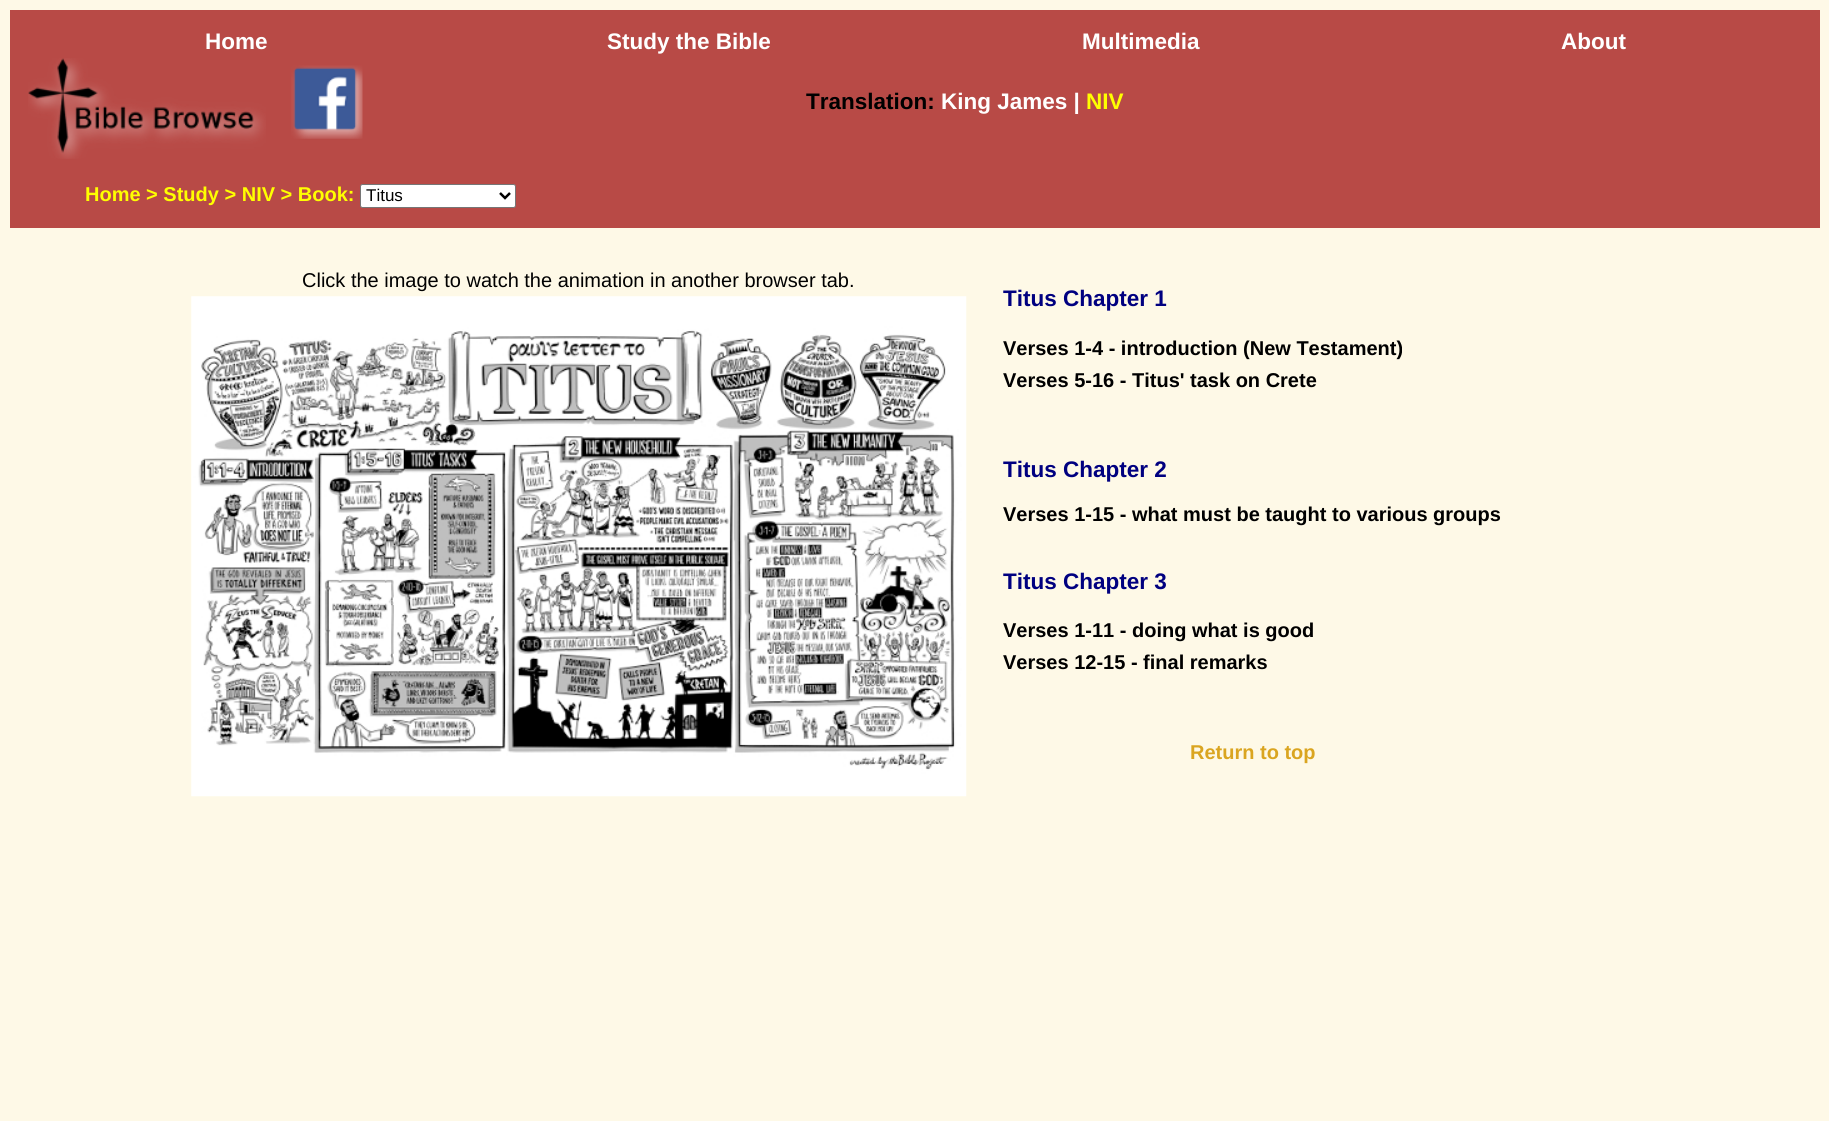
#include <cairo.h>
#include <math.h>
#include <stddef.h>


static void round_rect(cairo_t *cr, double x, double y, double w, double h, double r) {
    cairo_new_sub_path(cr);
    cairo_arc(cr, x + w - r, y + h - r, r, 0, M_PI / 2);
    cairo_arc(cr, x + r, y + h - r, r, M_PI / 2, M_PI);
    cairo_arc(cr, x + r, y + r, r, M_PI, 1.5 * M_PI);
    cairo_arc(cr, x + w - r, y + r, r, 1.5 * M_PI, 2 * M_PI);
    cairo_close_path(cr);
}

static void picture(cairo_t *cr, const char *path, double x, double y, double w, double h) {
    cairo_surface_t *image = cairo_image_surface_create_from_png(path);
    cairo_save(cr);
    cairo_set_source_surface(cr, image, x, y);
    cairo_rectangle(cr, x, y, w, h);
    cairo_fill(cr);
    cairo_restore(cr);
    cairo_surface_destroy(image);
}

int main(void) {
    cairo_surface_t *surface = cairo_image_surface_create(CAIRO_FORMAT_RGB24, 1829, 1121);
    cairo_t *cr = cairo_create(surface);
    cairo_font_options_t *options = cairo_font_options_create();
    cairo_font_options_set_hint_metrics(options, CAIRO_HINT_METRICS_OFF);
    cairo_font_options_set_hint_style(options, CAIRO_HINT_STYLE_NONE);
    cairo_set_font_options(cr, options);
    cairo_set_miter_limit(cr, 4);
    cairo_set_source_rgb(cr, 0.996, 0.976, 0.906);
    cairo_paint(cr);
    cairo_set_source_rgb(cr, 0.722, 0.29, 0.275);
    cairo_rectangle(cr, 10, 10, 1810, 218);
    cairo_fill(cr);
    cairo_select_font_face(cr, "Liberation Sans", CAIRO_FONT_SLANT_NORMAL, CAIRO_FONT_WEIGHT_BOLD);
    cairo_set_font_size(cr, 22.5);
    cairo_set_source_rgb(cr, 1, 1, 1);
    cairo_move_to(cr, 205, 49);
    cairo_show_text(cr, "Home");
    cairo_move_to(cr, 607, 49);
    cairo_show_text(cr, "Study the Bible");
    cairo_move_to(cr, 1082, 49);
    cairo_show_text(cr, "Multimedia");
    cairo_move_to(cr, 1561, 49);
    cairo_show_text(cr, "About");
    picture(cr, "img1.png", 28, 58, 238, 101);
    picture(cr, "img2.png", 291, 65, 72, 74);
    cairo_set_source_rgb(cr, 0, 0, 0);
    cairo_move_to(cr, 806, 109);
    cairo_show_text(cr, "Translation:");
    cairo_set_source_rgb(cr, 1, 1, 1);
    cairo_move_to(cr, 941, 109);
    cairo_show_text(cr, "King James |");
    cairo_set_source_rgb(cr, 1, 1, 0);
    cairo_move_to(cr, 1086, 109);
    cairo_show_text(cr, "NIV");
    cairo_set_font_size(cr, 20);
    cairo_move_to(cr, 85, 201);
    cairo_show_text(cr, "Home > Study > NIV > Book:");
    cairo_set_source_rgb(cr, 1, 1, 1);
    round_rect(cr, 360.5, 184.5, 155, 23, 2);
    cairo_fill_preserve(cr);
    cairo_set_source_rgb(cr, 0.463, 0.463, 0.463);
    cairo_set_line_width(cr, 1);
    cairo_stroke(cr);
    cairo_new_path(cr);
    cairo_move_to(cr, 500, 193);
    cairo_line_to(cr, 505, 198);
    cairo_line_to(cr, 510, 193);
    cairo_set_source_rgb(cr, 0, 0, 0);
    cairo_set_line_width(cr, 2.5);
    cairo_stroke(cr);
    cairo_select_font_face(cr, "Liberation Sans", CAIRO_FONT_SLANT_NORMAL, CAIRO_FONT_WEIGHT_NORMAL);
    cairo_set_font_size(cr, 17);
    cairo_move_to(cr, 366, 201);
    cairo_show_text(cr, "Titus");
    cairo_set_font_size(cr, 20);
    cairo_move_to(cr, 302, 287);
    cairo_show_text(cr, "Click the image to watch the animation in another browser tab.");
    picture(cr, "img3.png", 191, 296, 776, 501);
    cairo_select_font_face(cr, "Liberation Sans", CAIRO_FONT_SLANT_NORMAL, CAIRO_FONT_WEIGHT_BOLD);
    cairo_set_font_size(cr, 22.5);
    cairo_set_source_rgb(cr, 0, 0, 0.502);
    cairo_move_to(cr, 1003, 306);
    cairo_show_text(cr, "Titus Chapter 1");
    cairo_set_font_size(cr, 20);
    cairo_set_source_rgb(cr, 0, 0, 0);
    cairo_move_to(cr, 1003, 355);
    cairo_show_text(cr, "Verses 1-4 - introduction (New Testament)");
    cairo_move_to(cr, 1003, 387);
    cairo_show_text(cr, "Verses 5-16 - Titus' task on Crete");
    cairo_set_font_size(cr, 22.5);
    cairo_set_source_rgb(cr, 0, 0, 0.502);
    cairo_move_to(cr, 1003, 477);
    cairo_show_text(cr, "Titus Chapter 2");
    cairo_set_font_size(cr, 20);
    cairo_set_source_rgb(cr, 0, 0, 0);
    cairo_move_to(cr, 1003, 521);
    cairo_show_text(cr, "Verses 1-15 - what must be taught to various groups");
    cairo_set_font_size(cr, 22.5);
    cairo_set_source_rgb(cr, 0, 0, 0.502);
    cairo_move_to(cr, 1003, 589);
    cairo_show_text(cr, "Titus Chapter 3");
    cairo_set_font_size(cr, 20);
    cairo_set_source_rgb(cr, 0, 0, 0);
    cairo_move_to(cr, 1003, 637);
    cairo_show_text(cr, "Verses 1-11 - doing what is good");
    cairo_move_to(cr, 1003, 669);
    cairo_show_text(cr, "Verses 12-15 - final remarks");
    cairo_set_source_rgb(cr, 0.855, 0.647, 0.125);
    cairo_move_to(cr, 1190, 759);
    cairo_show_text(cr, "Return to top");
    cairo_surface_write_to_png(surface, "page.png");
    cairo_font_options_destroy(options);
    cairo_destroy(cr);
    cairo_surface_destroy(surface);
    return 0;
}
